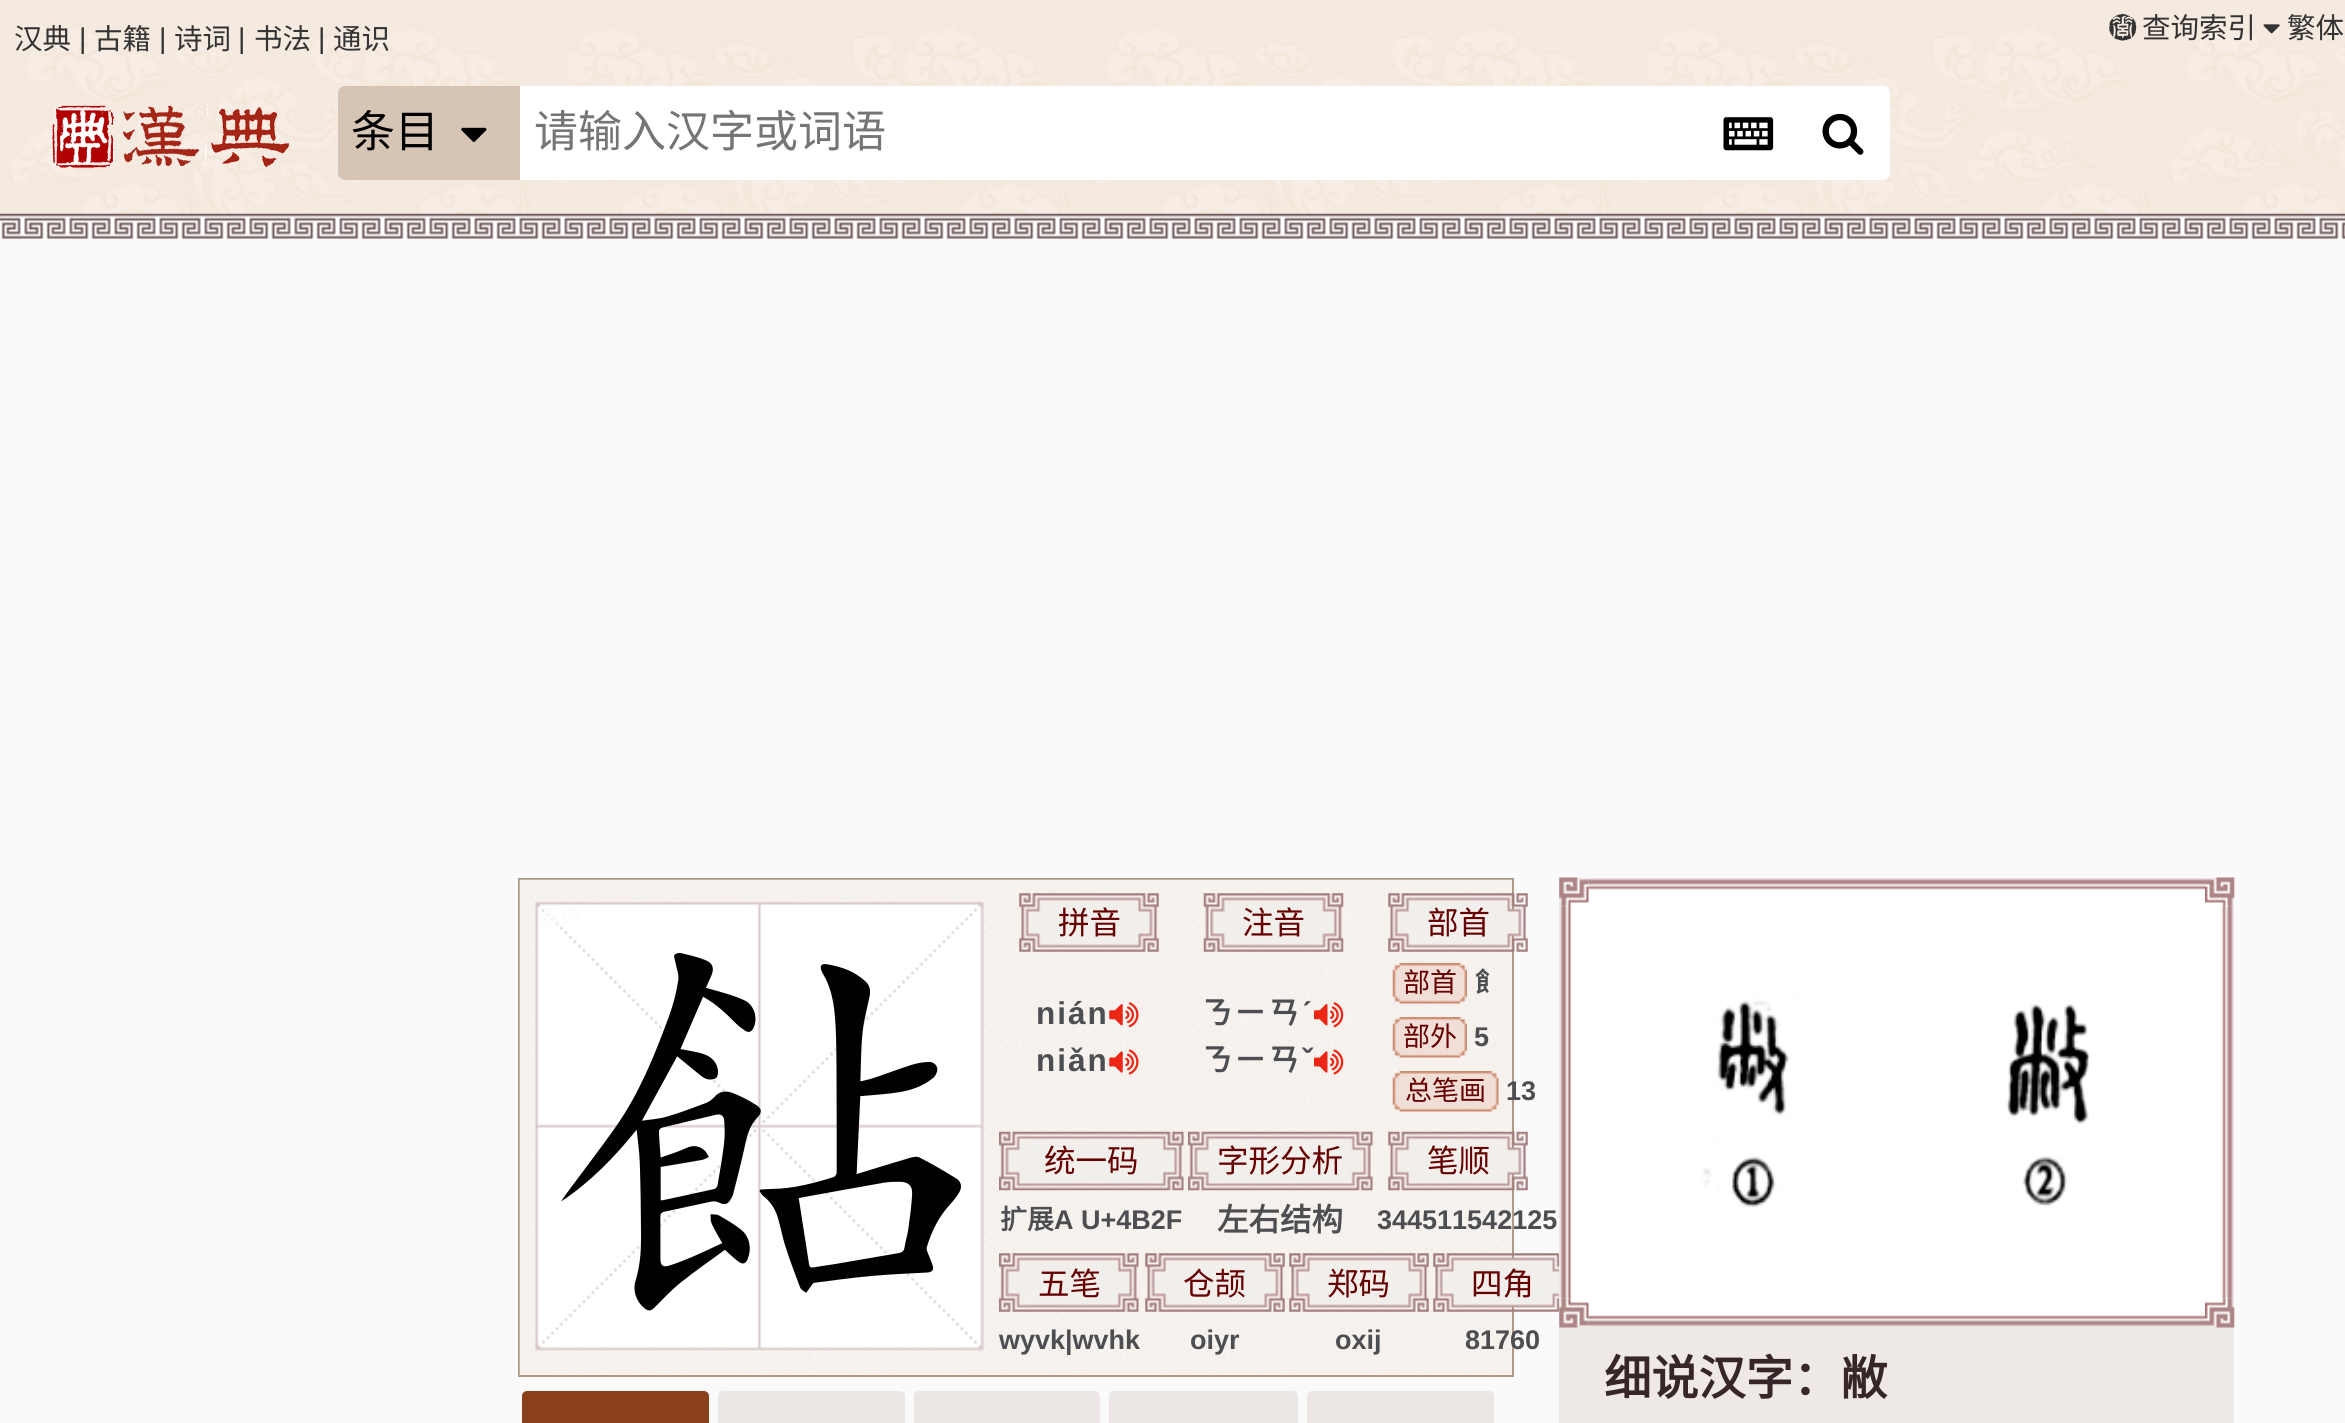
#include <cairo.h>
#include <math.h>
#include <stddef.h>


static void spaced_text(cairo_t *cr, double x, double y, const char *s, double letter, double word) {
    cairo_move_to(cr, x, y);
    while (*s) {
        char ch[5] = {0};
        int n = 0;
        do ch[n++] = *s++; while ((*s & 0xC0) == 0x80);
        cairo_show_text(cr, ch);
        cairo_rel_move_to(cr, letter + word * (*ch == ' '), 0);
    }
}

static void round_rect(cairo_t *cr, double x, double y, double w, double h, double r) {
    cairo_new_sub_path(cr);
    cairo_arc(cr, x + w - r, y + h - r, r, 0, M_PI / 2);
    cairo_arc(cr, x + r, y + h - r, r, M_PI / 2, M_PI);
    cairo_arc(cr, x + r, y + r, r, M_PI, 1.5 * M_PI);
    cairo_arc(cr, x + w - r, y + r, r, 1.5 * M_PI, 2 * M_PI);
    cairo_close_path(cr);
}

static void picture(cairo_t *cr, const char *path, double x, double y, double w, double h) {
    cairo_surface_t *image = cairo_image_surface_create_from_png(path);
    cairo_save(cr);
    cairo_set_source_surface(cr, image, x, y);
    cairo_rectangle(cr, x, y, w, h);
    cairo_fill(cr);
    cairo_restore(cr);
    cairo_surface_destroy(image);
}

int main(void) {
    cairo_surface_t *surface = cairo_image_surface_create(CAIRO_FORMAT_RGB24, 2345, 1423);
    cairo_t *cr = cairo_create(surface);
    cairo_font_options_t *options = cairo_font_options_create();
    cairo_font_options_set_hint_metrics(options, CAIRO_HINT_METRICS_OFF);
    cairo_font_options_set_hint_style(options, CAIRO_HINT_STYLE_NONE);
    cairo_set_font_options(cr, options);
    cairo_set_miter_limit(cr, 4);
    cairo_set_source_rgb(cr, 0.98, 0.98, 0.98);
    cairo_paint(cr);
    picture(cr, "img1.png", 0, 0, 2345, 241);
    cairo_select_font_face(cr, "Noto Sans CJK SC", CAIRO_FONT_SLANT_NORMAL, CAIRO_FONT_WEIGHT_NORMAL);
    cairo_set_font_size(cr, 28.5);
    cairo_set_source_rgb(cr, 0.2, 0.2, 0.2);
    cairo_move_to(cr, 14, 49);
    cairo_show_text(cr, "汉典");
    cairo_select_font_face(cr, "Liberation Sans", CAIRO_FONT_SLANT_NORMAL, CAIRO_FONT_WEIGHT_NORMAL);
    cairo_move_to(cr, 79, 48);
    cairo_show_text(cr, "|");
    cairo_select_font_face(cr, "Noto Sans CJK SC", CAIRO_FONT_SLANT_NORMAL, CAIRO_FONT_WEIGHT_NORMAL);
    cairo_move_to(cr, 94, 49);
    cairo_show_text(cr, "古籍");
    cairo_select_font_face(cr, "Liberation Sans", CAIRO_FONT_SLANT_NORMAL, CAIRO_FONT_WEIGHT_NORMAL);
    cairo_move_to(cr, 159, 48);
    cairo_show_text(cr, "|");
    cairo_select_font_face(cr, "Noto Sans CJK SC", CAIRO_FONT_SLANT_NORMAL, CAIRO_FONT_WEIGHT_NORMAL);
    cairo_move_to(cr, 174, 49);
    cairo_show_text(cr, "诗词");
    cairo_select_font_face(cr, "Liberation Sans", CAIRO_FONT_SLANT_NORMAL, CAIRO_FONT_WEIGHT_NORMAL);
    cairo_move_to(cr, 238, 48);
    cairo_show_text(cr, "|");
    cairo_select_font_face(cr, "Noto Sans CJK SC", CAIRO_FONT_SLANT_NORMAL, CAIRO_FONT_WEIGHT_NORMAL);
    cairo_move_to(cr, 254, 49);
    cairo_show_text(cr, "书法");
    cairo_select_font_face(cr, "Liberation Sans", CAIRO_FONT_SLANT_NORMAL, CAIRO_FONT_WEIGHT_NORMAL);
    cairo_move_to(cr, 318, 48);
    cairo_show_text(cr, "|");
    cairo_select_font_face(cr, "Noto Sans CJK SC", CAIRO_FONT_SLANT_NORMAL, CAIRO_FONT_WEIGHT_NORMAL);
    cairo_move_to(cr, 333, 49);
    cairo_show_text(cr, "通识");
    picture(cr, "img2.png", 2108, 13, 29, 28);
    cairo_move_to(cr, 2142, 38);
    cairo_show_text(cr, "查询索引");
    picture(cr, "img3.png", 2263, 24, 17, 10);
    cairo_move_to(cr, 2287, 38);
    cairo_show_text(cr, "繁体");
    picture(cr, "img4.png", 51, 103, 239, 65);
    cairo_set_source_rgb(cr, 1, 1, 1);
    round_rect(cr, 338, 86, 1552, 94, 7);
    cairo_fill(cr);
    cairo_set_source_rgb(cr, 0.839, 0.769, 0.71);
    cairo_new_path(cr);
    cairo_move_to(cr, 345, 86);
    cairo_line_to(cr, 520, 86);
    cairo_line_to(cr, 520, 180);
    cairo_line_to(cr, 345, 180);
    cairo_curve_to(cr, 341, 180, 338, 177, 338, 173);
    cairo_line_to(cr, 338, 93);
    cairo_curve_to(cr, 338, 89, 341, 86, 345, 86);
    cairo_close_path(cr);
    cairo_fill(cr);
    cairo_set_font_size(cr, 44);
    cairo_set_source_rgb(cr, 0, 0, 0);
    cairo_move_to(cr, 351, 147);
    cairo_show_text(cr, "条目");
    picture(cr, "img5.png", 461, 127, 26, 15);
    cairo_set_source_rgb(cr, 0.459, 0.459, 0.459);
    cairo_move_to(cr, 534, 147);
    cairo_show_text(cr, "请输入汉字或词语");
    picture(cr, "img6.png", 1723, 117, 51, 34);
    picture(cr, "img7.png", 1822, 113, 42, 42);
    picture(cr, "img8.png", 0, 213, 2345, 28);
    cairo_rectangle(cr, 519, 879, 994, 497);
    cairo_set_source_rgb(cr, 0.686, 0.604, 0.529);
    cairo_stroke(cr);
    picture(cr, "img9.png", 519, 879, 993, 496);
    picture(cr, "img10.png", 535, 902, 449, 449);
    picture(cr, "img11.png", 542, 907, 419, 404);
    picture(cr, "img12.png", 1019, 893, 140, 59);
    cairo_set_font_size(cr, 31.5);
    cairo_set_source_rgb(cr, 0.4, 0, 0);
    cairo_move_to(cr, 1058, 934);
    cairo_show_text(cr, "拼音");
    picture(cr, "img13.png", 1203, 893, 141, 59);
    cairo_move_to(cr, 1242, 934);
    cairo_show_text(cr, "注音");
    picture(cr, "img14.png", 1388, 893, 140, 59);
    cairo_move_to(cr, 1427, 934);
    cairo_show_text(cr, "部首");
    cairo_select_font_face(cr, "Liberation Sans", CAIRO_FONT_SLANT_NORMAL, CAIRO_FONT_WEIGHT_BOLD);
    cairo_set_source_rgb(cr, 0.302, 0.306, 0.318);
    spaced_text(cr, 1036, 1024, "nián", 2, 0);
    picture(cr, "img15.png", 1109, 1002, 30, 26);
    spaced_text(cr, 1036, 1071, "niǎn", 2, 0);
    picture(cr, "img16.png", 1109, 1049, 30, 26);
    cairo_select_font_face(cr, "Noto Sans CJK SC", CAIRO_FONT_SLANT_NORMAL, CAIRO_FONT_WEIGHT_BOLD);
    spaced_text(cr, 1201, 1024, "ㄋㄧㄢ", 2, 0);
    cairo_select_font_face(cr, "Liberation Sans", CAIRO_FONT_SLANT_NORMAL, CAIRO_FONT_WEIGHT_BOLD);
    spaced_text(cr, 1302, 1024, "ˊ", 2, 0);
    picture(cr, "img17.png", 1314, 1002, 30, 26);
    cairo_select_font_face(cr, "Noto Sans CJK SC", CAIRO_FONT_SLANT_NORMAL, CAIRO_FONT_WEIGHT_BOLD);
    spaced_text(cr, 1201, 1071, "ㄋㄧㄢ", 2, 0);
    cairo_select_font_face(cr, "Liberation Sans", CAIRO_FONT_SLANT_NORMAL, CAIRO_FONT_WEIGHT_BOLD);
    spaced_text(cr, 1302, 1071, "ˇ", 2, 0);
    picture(cr, "img18.png", 1314, 1049, 30, 26);
    picture(cr, "img19.png", 1392, 963, 75, 41);
    cairo_select_font_face(cr, "Noto Sans CJK SC", CAIRO_FONT_SLANT_NORMAL, CAIRO_FONT_WEIGHT_NORMAL);
    cairo_set_font_size(cr, 27);
    cairo_set_source_rgb(cr, 0.4, 0, 0);
    cairo_move_to(cr, 1403, 992);
    cairo_show_text(cr, "部首");
    cairo_select_font_face(cr, "Noto Sans CJK SC", CAIRO_FONT_SLANT_NORMAL, CAIRO_FONT_WEIGHT_BOLD);
    cairo_set_source_rgb(cr, 0.302, 0.306, 0.318);
    cairo_move_to(cr, 1475, 992);
    cairo_show_text(cr, "飠");
    picture(cr, "img20.png", 1392, 1017, 75, 41);
    cairo_select_font_face(cr, "Noto Sans CJK SC", CAIRO_FONT_SLANT_NORMAL, CAIRO_FONT_WEIGHT_NORMAL);
    cairo_set_source_rgb(cr, 0.4, 0, 0);
    cairo_move_to(cr, 1403, 1046);
    cairo_show_text(cr, "部外");
    cairo_select_font_face(cr, "Liberation Sans", CAIRO_FONT_SLANT_NORMAL, CAIRO_FONT_WEIGHT_BOLD);
    cairo_set_source_rgb(cr, 0.302, 0.306, 0.318);
    cairo_move_to(cr, 1474, 1046);
    cairo_show_text(cr, "5");
    picture(cr, "img21.png", 1392, 1071, 107, 41);
    cairo_select_font_face(cr, "Noto Sans CJK SC", CAIRO_FONT_SLANT_NORMAL, CAIRO_FONT_WEIGHT_NORMAL);
    cairo_set_source_rgb(cr, 0.4, 0, 0);
    cairo_move_to(cr, 1405, 1100);
    cairo_show_text(cr, "总笔画");
    cairo_select_font_face(cr, "Liberation Sans", CAIRO_FONT_SLANT_NORMAL, CAIRO_FONT_WEIGHT_BOLD);
    cairo_set_source_rgb(cr, 0.302, 0.306, 0.318);
    cairo_move_to(cr, 1506, 1100);
    cairo_show_text(cr, "13");
    picture(cr, "img22.png", 999, 1131, 185, 60);
    cairo_select_font_face(cr, "Noto Sans CJK SC", CAIRO_FONT_SLANT_NORMAL, CAIRO_FONT_WEIGHT_NORMAL);
    cairo_set_font_size(cr, 31.5);
    cairo_set_source_rgb(cr, 0.4, 0, 0);
    cairo_move_to(cr, 1044, 1172);
    cairo_show_text(cr, "统一码");
    picture(cr, "img23.png", 1188, 1131, 185, 60);
    cairo_move_to(cr, 1217, 1172);
    cairo_show_text(cr, "字形分析");
    picture(cr, "img24.png", 1388, 1131, 140, 60);
    cairo_move_to(cr, 1427, 1172);
    cairo_show_text(cr, "笔顺");
    cairo_select_font_face(cr, "Noto Sans CJK SC", CAIRO_FONT_SLANT_NORMAL, CAIRO_FONT_WEIGHT_BOLD);
    cairo_set_font_size(cr, 27);
    cairo_set_source_rgb(cr, 0.302, 0.306, 0.318);
    cairo_move_to(cr, 1000, 1229);
    cairo_show_text(cr, "扩展");
    cairo_select_font_face(cr, "Liberation Sans", CAIRO_FONT_SLANT_NORMAL, CAIRO_FONT_WEIGHT_BOLD);
    cairo_move_to(cr, 1054, 1229);
    cairo_show_text(cr, "A U+4B2F");
    cairo_select_font_face(cr, "Noto Sans CJK SC", CAIRO_FONT_SLANT_NORMAL, CAIRO_FONT_WEIGHT_BOLD);
    cairo_set_font_size(cr, 31.5);
    cairo_move_to(cr, 1217, 1231);
    cairo_show_text(cr, "左右结构");
    cairo_select_font_face(cr, "Liberation Sans", CAIRO_FONT_SLANT_NORMAL, CAIRO_FONT_WEIGHT_BOLD);
    cairo_set_font_size(cr, 27);
    cairo_move_to(cr, 1377, 1229);
    cairo_show_text(cr, "344511542125");
    picture(cr, "img25.png", 999, 1253, 140, 59);
    cairo_select_font_face(cr, "Noto Sans CJK SC", CAIRO_FONT_SLANT_NORMAL, CAIRO_FONT_WEIGHT_NORMAL);
    cairo_set_font_size(cr, 31.5);
    cairo_set_source_rgb(cr, 0.4, 0, 0);
    cairo_move_to(cr, 1038, 1295);
    cairo_show_text(cr, "五笔");
    picture(cr, "img26.png", 1145, 1253, 140, 59);
    cairo_move_to(cr, 1183, 1295);
    cairo_show_text(cr, "仓颉");
    picture(cr, "img27.png", 1289, 1253, 140, 59);
    cairo_move_to(cr, 1327, 1295);
    cairo_show_text(cr, "郑码");
    picture(cr, "img28.png", 1433, 1253, 126, 59);
    cairo_move_to(cr, 1471, 1295);
    cairo_show_text(cr, "四角");
    cairo_select_font_face(cr, "Liberation Sans", CAIRO_FONT_SLANT_NORMAL, CAIRO_FONT_WEIGHT_BOLD);
    cairo_set_font_size(cr, 27);
    cairo_set_source_rgb(cr, 0.302, 0.306, 0.318);
    cairo_move_to(cr, 999, 1349);
    cairo_show_text(cr, "wyvk|wvhk");
    cairo_move_to(cr, 1190, 1349);
    cairo_show_text(cr, "oiyr");
    cairo_move_to(cr, 1335, 1349);
    cairo_show_text(cr, "oxij");
    cairo_move_to(cr, 1465, 1349);
    cairo_show_text(cr, "81760");
    cairo_set_source_rgb(cr, 0.545, 0.255, 0.11);
    round_rect(cr, 522, 1391, 187, 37, 5);
    cairo_fill(cr);
    cairo_set_source_rgb(cr, 0.925, 0.902, 0.898);
    round_rect(cr, 718, 1391, 187, 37, 5);
    cairo_fill(cr);
    round_rect(cr, 914, 1391, 186, 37, 5);
    cairo_fill(cr);
    round_rect(cr, 1109, 1391, 189, 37, 5);
    cairo_fill(cr);
    round_rect(cr, 1307, 1391, 187, 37, 5);
    cairo_fill(cr);
    cairo_set_source_rgb(cr, 0.937, 0.914, 0.902);
    cairo_rectangle(cr, 1559, 878, 675, 545);
    cairo_fill(cr);
    picture(cr, "img29.png", 1563, 886, 667, 431);
    picture(cr, "img30.png", 1559, 877, 676, 451);
    cairo_select_font_face(cr, "Noto Sans CJK SC", CAIRO_FONT_SLANT_NORMAL, CAIRO_FONT_WEIGHT_BOLD);
    cairo_set_font_size(cr, 47.25);
    cairo_set_source_rgb(cr, 0.212, 0.145, 0.161);
    cairo_move_to(cr, 1604, 1395);
    cairo_show_text(cr, "细说汉字：敝");
    cairo_surface_write_to_png(surface, "page.png");
    cairo_font_options_destroy(options);
    cairo_destroy(cr);
    cairo_surface_destroy(surface);
    return 0;
}
